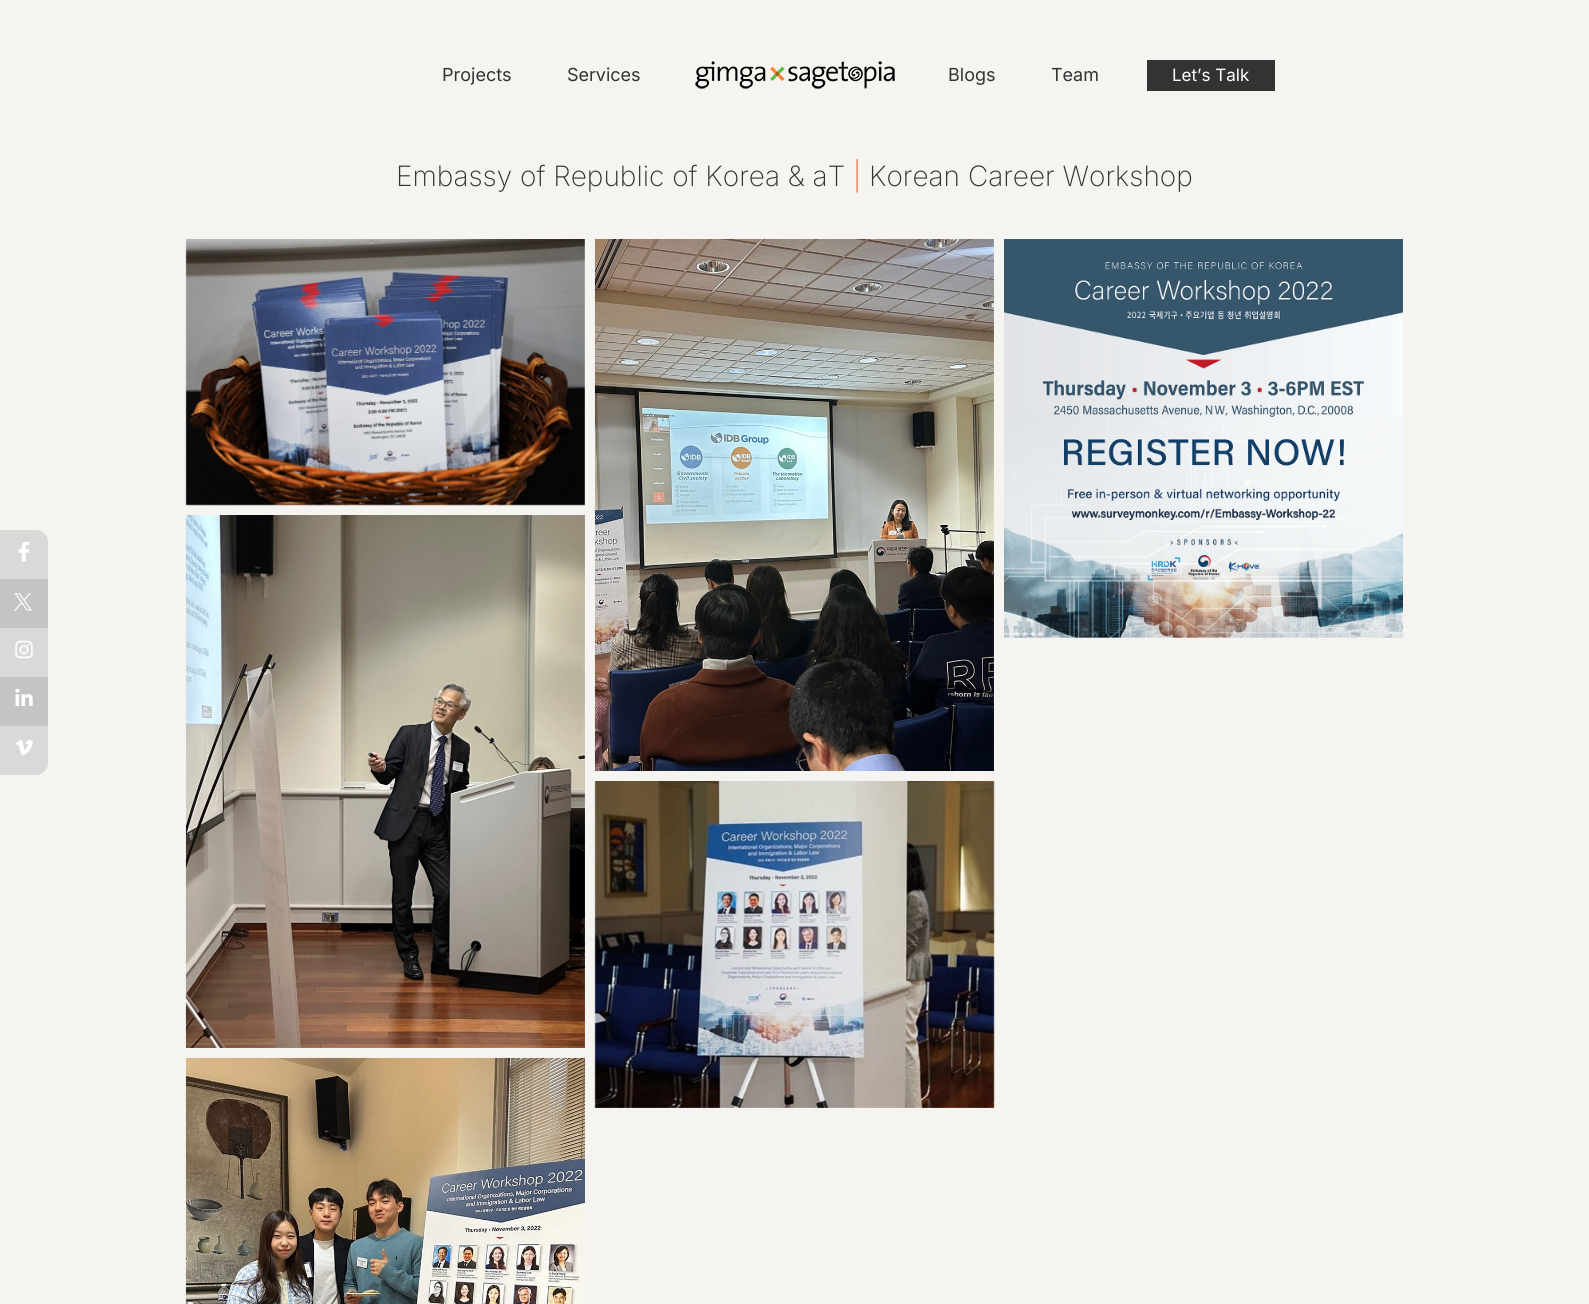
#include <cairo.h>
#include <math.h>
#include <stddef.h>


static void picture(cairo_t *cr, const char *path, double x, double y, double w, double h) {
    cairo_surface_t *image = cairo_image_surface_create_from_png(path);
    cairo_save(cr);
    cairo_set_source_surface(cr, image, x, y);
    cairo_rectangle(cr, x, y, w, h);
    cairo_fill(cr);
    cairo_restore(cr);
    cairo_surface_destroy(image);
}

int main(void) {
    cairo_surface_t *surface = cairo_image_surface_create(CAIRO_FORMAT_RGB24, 1589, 1304);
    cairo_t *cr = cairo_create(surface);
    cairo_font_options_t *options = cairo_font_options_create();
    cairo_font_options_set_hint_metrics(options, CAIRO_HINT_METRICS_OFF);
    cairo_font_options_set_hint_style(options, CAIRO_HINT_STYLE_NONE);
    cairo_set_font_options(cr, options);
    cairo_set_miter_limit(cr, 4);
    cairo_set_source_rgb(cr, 0.961, 0.957, 0.941);
    cairo_paint(cr);
    cairo_select_font_face(cr, "Inter", CAIRO_FONT_SLANT_NORMAL, CAIRO_FONT_WEIGHT_NORMAL);
    cairo_set_font_size(cr, 18);
    cairo_set_source_rgb(cr, 0.2, 0.2, 0.2);
    cairo_move_to(cr, 442, 81);
    cairo_show_text(cr, "Projects");
    cairo_move_to(cr, 567, 81);
    cairo_show_text(cr, "Services");
    picture(cr, "img1.png", 695, 61, 200, 28);
    cairo_move_to(cr, 948, 81);
    cairo_show_text(cr, "Blogs");
    cairo_move_to(cr, 1051, 81);
    cairo_show_text(cr, "Team");
    cairo_rectangle(cr, 1147, 60, 128, 31);
    cairo_fill(cr);
    cairo_set_font_size(cr, 17);
    cairo_set_source_rgb(cr, 1, 1, 1);
    cairo_move_to(cr, 1172, 81);
    cairo_show_text(cr, "Let’s Talk");
    cairo_select_font_face(cr, "Inter ExtraLight", CAIRO_FONT_SLANT_NORMAL, CAIRO_FONT_WEIGHT_NORMAL);
    cairo_set_font_size(cr, 28);
    cairo_set_source_rgb(cr, 0.2, 0.2, 0.2);
    cairo_move_to(cr, 396, 186);
    cairo_show_text(cr, "Embassy of Republic of Korea & aT");
    cairo_set_source_rgb(cr, 0.988, 0.361, 0.196);
    cairo_move_to(cr, 853, 186);
    cairo_show_text(cr, "|");
    cairo_set_source_rgb(cr, 0.2, 0.2, 0.2);
    cairo_move_to(cr, 869, 186);
    cairo_show_text(cr, "Korean Career Workshop");
    picture(cr, "img2.png", 185, 239, 400, 267);
    picture(cr, "img3.png", 185, 515, 400, 533);
    picture(cr, "img4.png", 185, 1057, 400, 247);
    picture(cr, "img5.png", 594, 239, 400, 532);
    picture(cr, "img6.png", 594, 781, 401, 327);
    picture(cr, "img7.png", 1004, 239, 399, 399);
    cairo_set_source_rgb(cr, 0.851, 0.851, 0.843);
    cairo_new_path(cr);
    cairo_move_to(cr, -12, 530);
    cairo_line_to(cr, 36, 530);
    cairo_curve_to(cr, 42.5, 530, 48, 535.5, 48, 542);
    cairo_line_to(cr, 48, 579);
    cairo_line_to(cr, -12, 579);
    cairo_close_path(cr);
    cairo_fill(cr);
    picture(cr, "img8.png", 18, 542, 12, 20);
    cairo_set_source_rgb(cr, 0.769, 0.769, 0.761);
    cairo_rectangle(cr, 0, 579, 48, 49);
    cairo_fill(cr);
    picture(cr, "img9.png", 14, 593, 18, 18);
    cairo_set_source_rgb(cr, 0.851, 0.851, 0.843);
    cairo_rectangle(cr, 0, 628, 48, 49);
    cairo_fill(cr);
    picture(cr, "img10.png", 15, 640, 18, 19);
    cairo_set_source_rgb(cr, 0.769, 0.769, 0.761);
    cairo_rectangle(cr, 0, 677, 48, 49);
    cairo_fill(cr);
    picture(cr, "img11.png", 15, 689, 18, 17);
    cairo_set_source_rgb(cr, 0.851, 0.851, 0.843);
    cairo_new_path(cr);
    cairo_move_to(cr, -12, 726);
    cairo_line_to(cr, 48, 726);
    cairo_line_to(cr, 48, 763);
    cairo_curve_to(cr, 48, 769.5, 42.5, 775, 36, 775);
    cairo_line_to(cr, -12, 775);
    cairo_close_path(cr);
    cairo_fill(cr);
    picture(cr, "img12.png", 15, 740, 18, 15);
    cairo_surface_write_to_png(surface, "page.png");
    cairo_font_options_destroy(options);
    cairo_destroy(cr);
    cairo_surface_destroy(surface);
    return 0;
}
